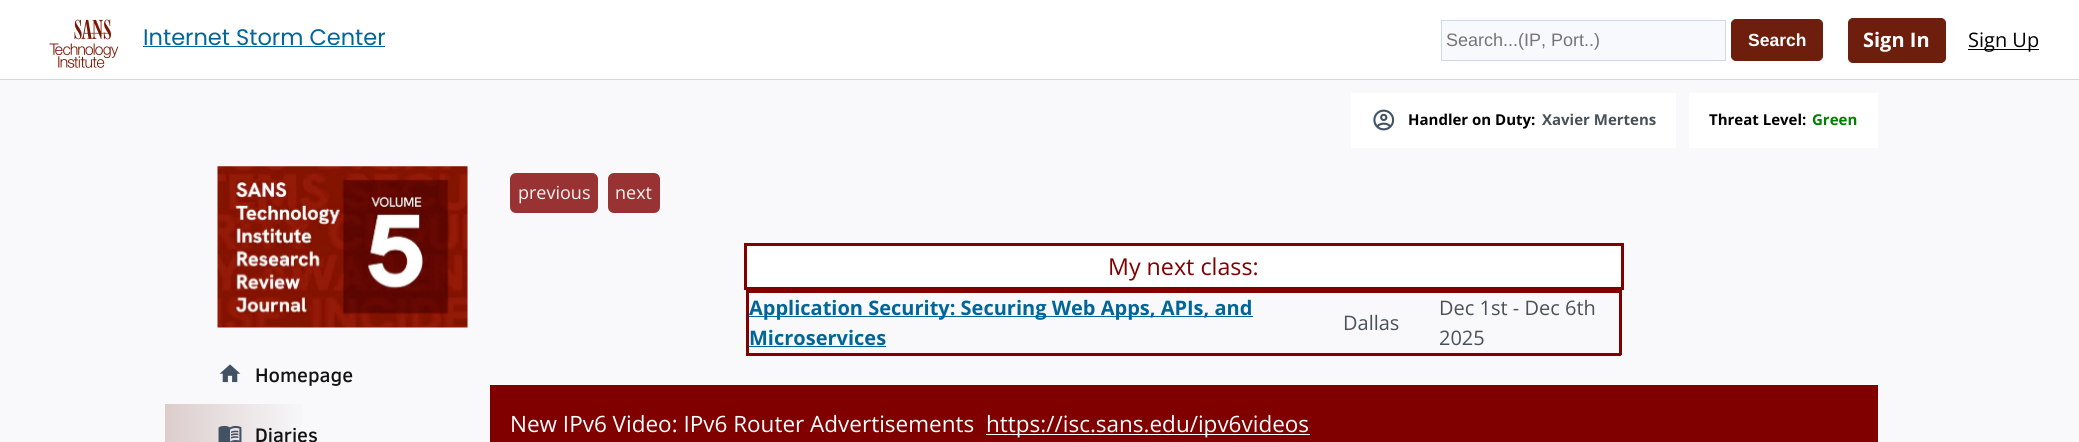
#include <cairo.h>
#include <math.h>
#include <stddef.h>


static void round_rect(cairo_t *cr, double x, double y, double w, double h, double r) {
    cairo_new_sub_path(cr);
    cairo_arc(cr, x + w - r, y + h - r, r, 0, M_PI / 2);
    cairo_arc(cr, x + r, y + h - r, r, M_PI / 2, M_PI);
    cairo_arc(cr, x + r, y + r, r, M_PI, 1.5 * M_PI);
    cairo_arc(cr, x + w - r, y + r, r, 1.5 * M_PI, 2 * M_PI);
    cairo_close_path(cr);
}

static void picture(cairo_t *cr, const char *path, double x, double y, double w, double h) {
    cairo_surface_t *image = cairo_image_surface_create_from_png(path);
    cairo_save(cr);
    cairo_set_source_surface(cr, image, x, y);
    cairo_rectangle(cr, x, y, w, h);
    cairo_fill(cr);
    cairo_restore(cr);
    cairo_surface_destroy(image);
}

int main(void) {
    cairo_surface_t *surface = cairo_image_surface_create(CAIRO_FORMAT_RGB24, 2079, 442);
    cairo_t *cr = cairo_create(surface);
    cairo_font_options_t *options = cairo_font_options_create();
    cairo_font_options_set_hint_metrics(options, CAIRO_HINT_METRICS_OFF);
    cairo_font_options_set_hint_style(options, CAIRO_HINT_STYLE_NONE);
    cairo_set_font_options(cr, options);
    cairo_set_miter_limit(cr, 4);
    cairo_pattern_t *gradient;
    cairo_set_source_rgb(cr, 0.973, 0.976, 0.988);
    cairo_paint(cr);
    cairo_set_source_rgb(cr, 1, 1, 1);
    cairo_rectangle(cr, 0, 0, 2079, 79);
    cairo_fill(cr);
    cairo_set_source_rgb(cr, 0.808, 0.855, 0.922);
    cairo_rectangle(cr, 0, 79, 2079, 1);
    cairo_fill(cr);
    picture(cr, "img1.png", 49, 19, 70, 49);
    cairo_select_font_face(cr, "Poppins", CAIRO_FONT_SLANT_NORMAL, CAIRO_FONT_WEIGHT_NORMAL);
    cairo_set_font_size(cr, 22.5);
    cairo_set_source_rgb(cr, 0, 0.4, 0.6);
    cairo_move_to(cr, 143, 45);
    cairo_show_text(cr, "Internet Storm Center");
    cairo_rectangle(cr, 143, 46, 242, 1);
    cairo_fill(cr);
    cairo_set_source_rgb(cr, 0.969, 0.976, 0.988);
    cairo_rectangle(cr, 1441.5, 20.5, 284, 40);
    cairo_fill_preserve(cr);
    cairo_set_source_rgb(cr, 0.808, 0.855, 0.922);
    cairo_set_line_width(cr, 1);
    cairo_stroke(cr);
    cairo_select_font_face(cr, "Liberation Sans", CAIRO_FONT_SLANT_NORMAL, CAIRO_FONT_WEIGHT_NORMAL);
    cairo_set_font_size(cr, 18);
    cairo_set_source_rgb(cr, 0.459, 0.459, 0.459);
    cairo_move_to(cr, 1446, 46);
    cairo_show_text(cr, "Search...(IP, Port..)");
    cairo_set_source_rgb(cr, 0.431, 0.118, 0.047);
    round_rect(cr, 1731.5, 19.5, 91, 41, 4.5);
    cairo_fill_preserve(cr);
    cairo_stroke(cr);
    cairo_select_font_face(cr, "Liberation Sans", CAIRO_FONT_SLANT_NORMAL, CAIRO_FONT_WEIGHT_BOLD);
    cairo_set_font_size(cr, 17.5);
    cairo_set_source_rgb(cr, 1, 1, 1);
    cairo_move_to(cr, 1748, 46);
    cairo_show_text(cr, "Search");
    cairo_set_source_rgb(cr, 0.431, 0.118, 0.047);
    round_rect(cr, 1848.5, 18.5, 97, 44, 4.5);
    cairo_fill_preserve(cr);
    cairo_stroke(cr);
    cairo_select_font_face(cr, "Open Sans", CAIRO_FONT_SLANT_NORMAL, CAIRO_FONT_WEIGHT_BOLD);
    cairo_set_font_size(cr, 20);
    cairo_set_source_rgb(cr, 1, 1, 1);
    cairo_move_to(cr, 1863, 47);
    cairo_show_text(cr, "Sign In");
    cairo_set_source_rgb(cr, 0, 0, 0);
    cairo_rectangle(cr, 1968, 49, 71, 1);
    cairo_fill(cr);
    cairo_select_font_face(cr, "Open Sans", CAIRO_FONT_SLANT_NORMAL, CAIRO_FONT_WEIGHT_NORMAL);
    cairo_move_to(cr, 1968, 47);
    cairo_show_text(cr, "Sign Up");
    picture(cr, "img2.png", 217, 166, 251, 162);
    picture(cr, "img3.png", 219, 364, 22, 19);
    cairo_select_font_face(cr, "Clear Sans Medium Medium", CAIRO_FONT_SLANT_NORMAL, CAIRO_FONT_WEIGHT_NORMAL);
    cairo_set_source_rgb(cr, 0.075, 0.075, 0.075);
    cairo_move_to(cr, 255, 382);
    cairo_show_text(cr, "Homepage");
    gradient = cairo_pattern_create_linear(165, 434, 453, 434);
    cairo_pattern_add_color_stop_rgba(gradient, 0, 0.863, 0.804, 0.8, 1);
    cairo_pattern_add_color_stop_rgba(gradient, 0.5, 0.973, 0.976, 0.988, 1);
    cairo_set_source(cr, gradient);
    cairo_pattern_destroy(gradient);
    cairo_rectangle(cr, 165, 404, 137, 38);
    cairo_fill(cr);
    picture(cr, "img4.png", 218, 425, 24, 17);
    cairo_set_source_rgb(cr, 0.075, 0.075, 0.075);
    cairo_move_to(cr, 255, 442);
    cairo_show_text(cr, "Diaries");
    cairo_set_source_rgb(cr, 1, 1, 1);
    cairo_rectangle(cr, 1351, 93, 325, 55);
    cairo_fill(cr);
    picture(cr, "img5.png", 1373, 109, 22, 22);
    cairo_select_font_face(cr, "Open Sans", CAIRO_FONT_SLANT_NORMAL, CAIRO_FONT_WEIGHT_BOLD);
    cairo_set_font_size(cr, 15);
    cairo_set_source_rgb(cr, 0, 0, 0);
    cairo_move_to(cr, 1408, 125);
    cairo_show_text(cr, "Handler on Duty:");
    cairo_set_source_rgb(cr, 0.286, 0.314, 0.345);
    cairo_move_to(cr, 1542, 125);
    cairo_show_text(cr, "Xavier Mertens");
    cairo_set_source_rgb(cr, 1, 1, 1);
    cairo_rectangle(cr, 1689, 93, 189, 55);
    cairo_fill(cr);
    cairo_set_source_rgb(cr, 0, 0, 0);
    cairo_move_to(cr, 1709, 125);
    cairo_show_text(cr, "Threat Level:");
    cairo_set_source_rgb(cr, 0, 0.502, 0);
    cairo_move_to(cr, 1812, 125);
    cairo_show_text(cr, "Green");
    cairo_set_source_rgb(cr, 0.6, 0.2, 0.2);
    round_rect(cr, 510, 173, 88, 40, 6);
    cairo_fill(cr);
    cairo_select_font_face(cr, "Open Sans", CAIRO_FONT_SLANT_NORMAL, CAIRO_FONT_WEIGHT_NORMAL);
    cairo_set_font_size(cr, 18);
    cairo_set_source_rgb(cr, 0.957, 0.957, 0.957);
    cairo_move_to(cr, 518, 199);
    cairo_show_text(cr, "previous");
    cairo_set_source_rgb(cr, 0.6, 0.2, 0.2);
    round_rect(cr, 608, 173, 52, 40, 6);
    cairo_fill(cr);
    cairo_set_source_rgb(cr, 0.957, 0.957, 0.957);
    cairo_move_to(cr, 615, 199);
    cairo_show_text(cr, "next");
    cairo_set_source_rgb(cr, 1, 1, 1);
    cairo_rectangle(cr, 745.5, 244.5, 877, 44);
    cairo_fill_preserve(cr);
    cairo_set_source_rgb(cr, 0.502, 0, 0);
    cairo_set_line_width(cr, 3);
    cairo_stroke(cr);
    cairo_set_font_size(cr, 23.25);
    cairo_move_to(cr, 1108, 275);
    cairo_show_text(cr, "My next class:");
    cairo_rectangle(cr, 746, 290, 875, 3);
    cairo_fill(cr);
    cairo_rectangle(cr, 1619, 290, 3, 65);
    cairo_fill(cr);
    cairo_rectangle(cr, 746, 353, 875, 3);
    cairo_fill(cr);
    cairo_rectangle(cr, 746, 290, 3, 65);
    cairo_fill(cr);
    cairo_set_source_rgb(cr, 0, 0.4, 0.6);
    cairo_rectangle(cr, 749, 316, 504, 1);
    cairo_fill(cr);
    cairo_select_font_face(cr, "Open Sans", CAIRO_FONT_SLANT_NORMAL, CAIRO_FONT_WEIGHT_BOLD);
    cairo_set_font_size(cr, 20);
    cairo_move_to(cr, 749, 315);
    cairo_show_text(cr, "Application Security: Securing Web Apps, APIs, and");
    cairo_move_to(cr, 749, 345);
    cairo_show_text(cr, "Microservices");
    cairo_rectangle(cr, 749, 346, 137, 1);
    cairo_fill(cr);
    cairo_select_font_face(cr, "Open Sans", CAIRO_FONT_SLANT_NORMAL, CAIRO_FONT_WEIGHT_NORMAL);
    cairo_set_source_rgb(cr, 0.286, 0.314, 0.345);
    cairo_move_to(cr, 1343, 330);
    cairo_show_text(cr, "Dallas");
    cairo_move_to(cr, 1439, 315);
    cairo_show_text(cr, "Dec 1st - Dec 6th");
    cairo_move_to(cr, 1439, 345);
    cairo_show_text(cr, "2025");
    cairo_set_source_rgb(cr, 0.502, 0, 0);
    cairo_rectangle(cr, 490, 385, 1388, 57);
    cairo_fill(cr);
    cairo_set_font_size(cr, 22.5);
    cairo_set_source_rgb(cr, 1, 1, 1);
    cairo_move_to(cr, 510, 432);
    cairo_show_text(cr, "New IPv6 Video: IPv6 Router Advertisements");
    cairo_rectangle(cr, 986, 434, 324, 1);
    cairo_fill(cr);
    cairo_move_to(cr, 986, 432);
    cairo_show_text(cr, "https://isc.sans.edu/ipv6videos");
    cairo_surface_write_to_png(surface, "page.png");
    cairo_font_options_destroy(options);
    cairo_destroy(cr);
    cairo_surface_destroy(surface);
    return 0;
}
